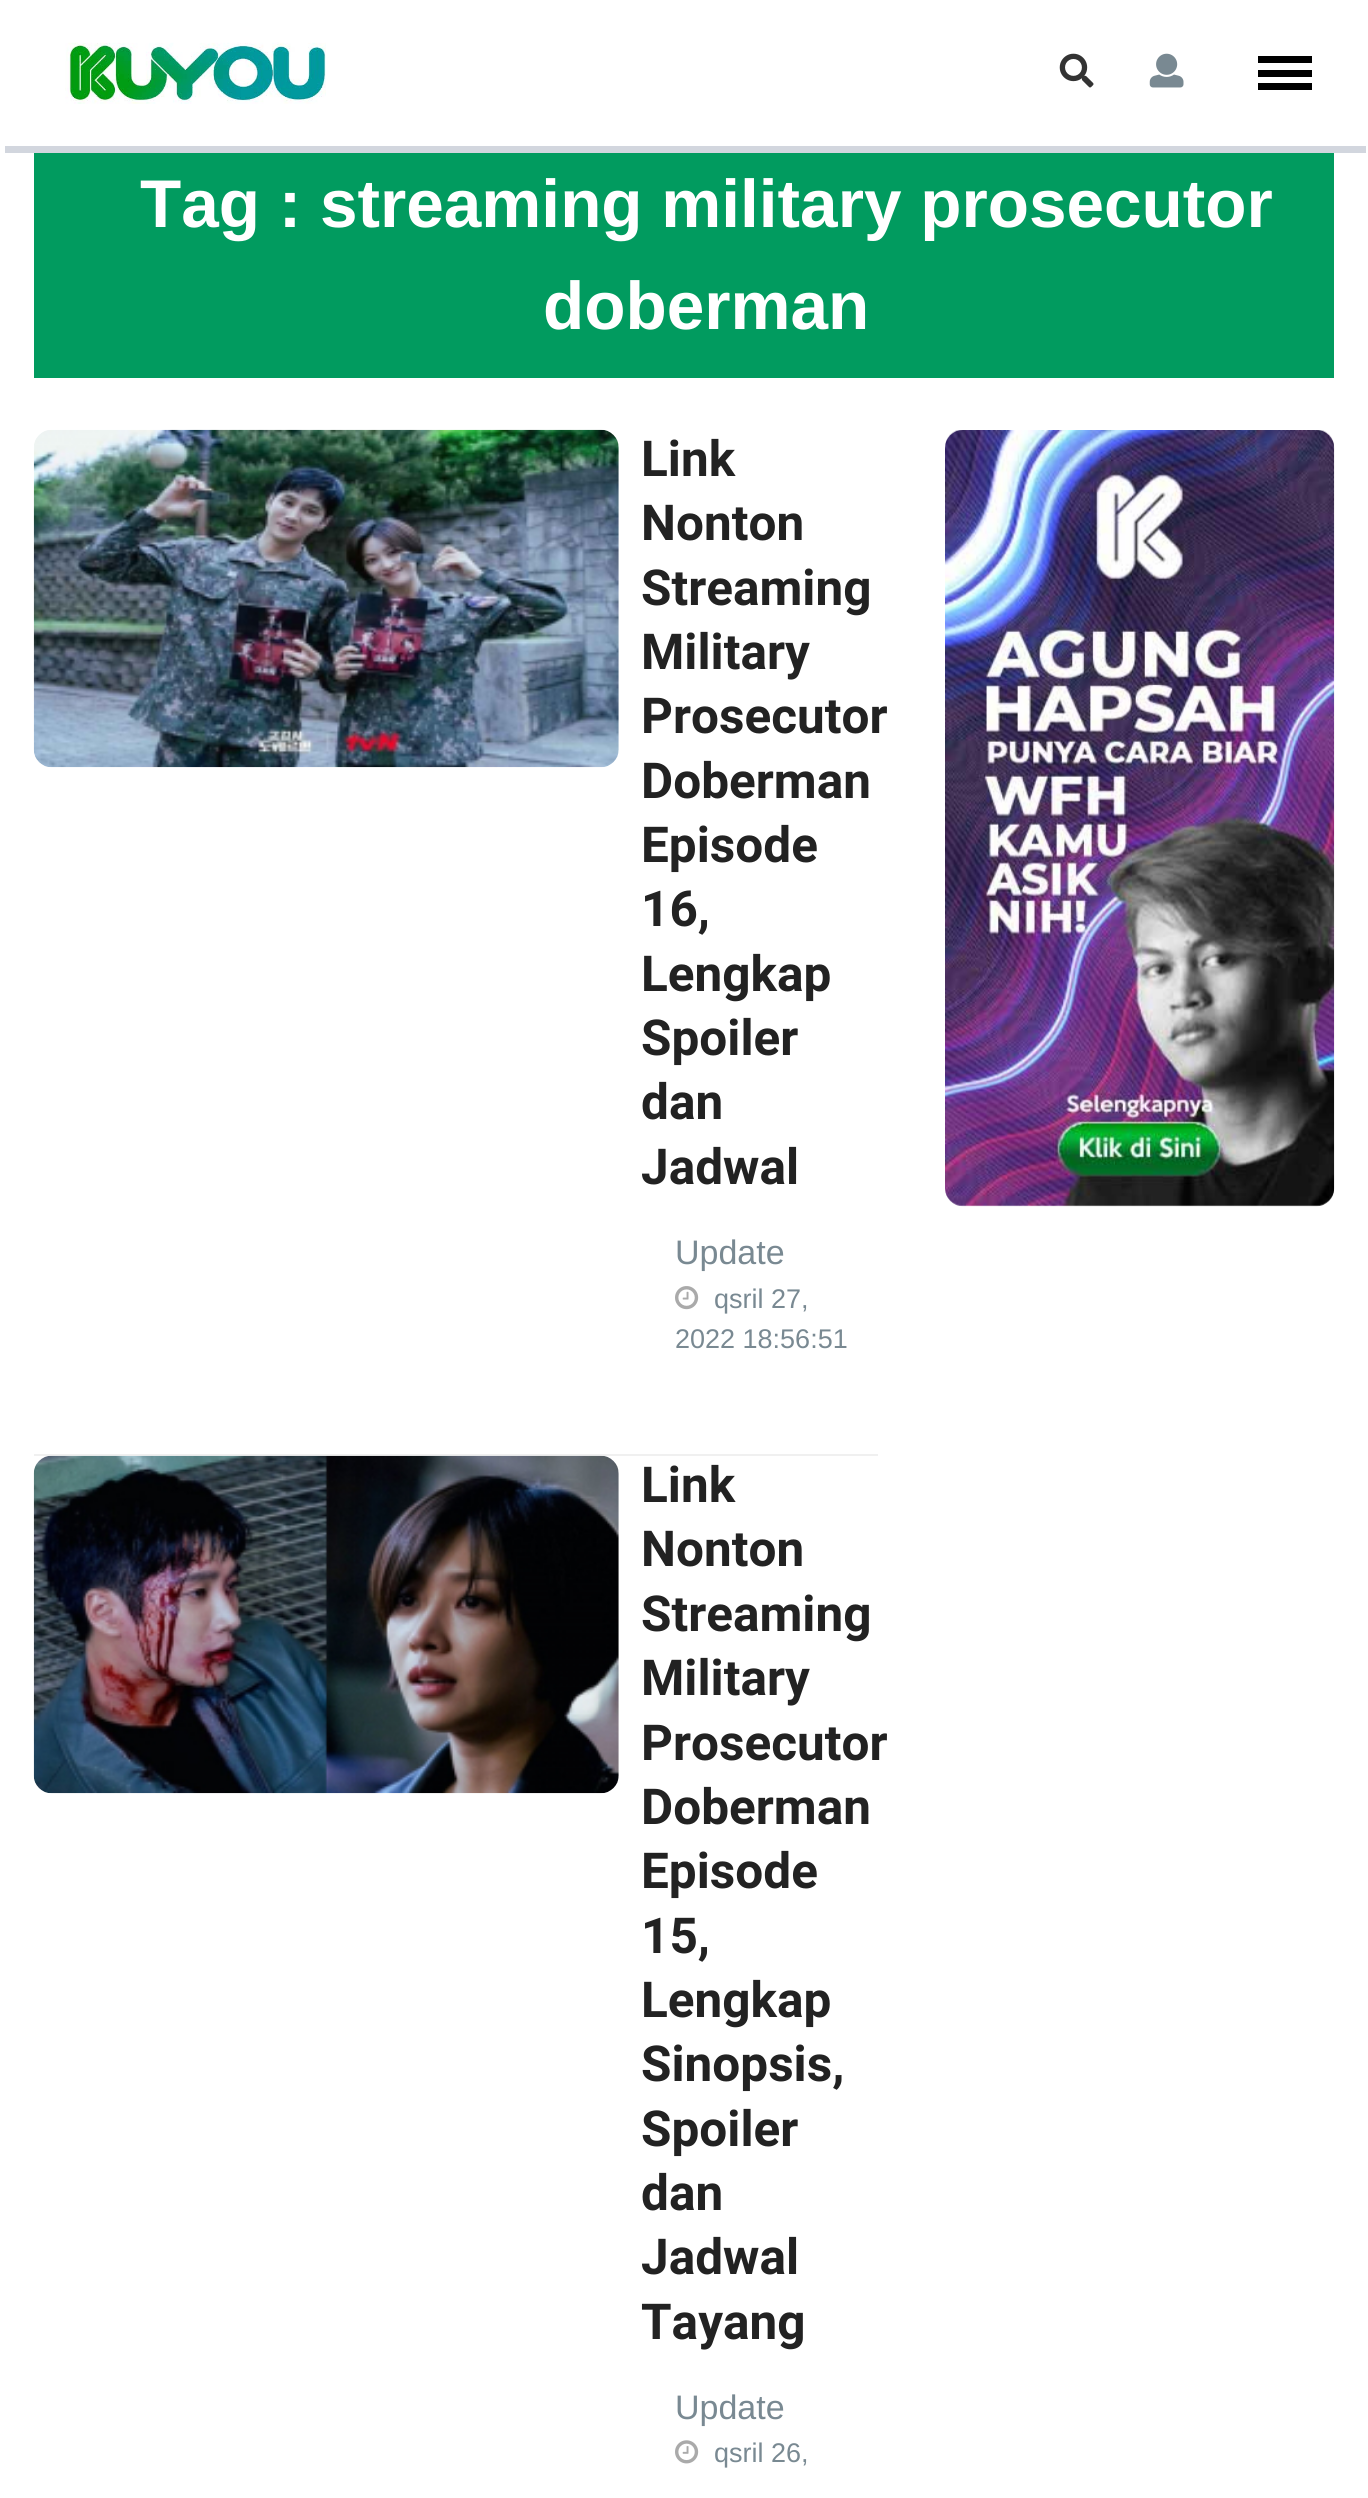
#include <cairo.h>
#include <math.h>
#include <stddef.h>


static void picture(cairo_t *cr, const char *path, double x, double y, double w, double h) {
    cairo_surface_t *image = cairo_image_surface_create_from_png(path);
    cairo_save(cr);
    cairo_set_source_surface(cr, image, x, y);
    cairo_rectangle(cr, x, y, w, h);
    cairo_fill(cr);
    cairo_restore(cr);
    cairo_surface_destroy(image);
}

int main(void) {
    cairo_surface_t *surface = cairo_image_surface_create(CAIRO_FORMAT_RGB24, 1368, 2498);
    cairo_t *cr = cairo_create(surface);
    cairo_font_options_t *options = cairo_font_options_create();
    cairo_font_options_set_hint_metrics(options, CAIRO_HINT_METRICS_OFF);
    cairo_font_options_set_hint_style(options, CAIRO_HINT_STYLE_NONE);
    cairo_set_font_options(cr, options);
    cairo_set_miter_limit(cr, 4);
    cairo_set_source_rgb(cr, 1, 1, 1);
    cairo_paint(cr);
    picture(cr, "img1.png", 65, 42, 261, 62);
    picture(cr, "img2.png", 1059, 53, 35, 35);
    picture(cr, "img3.png", 1149, 53, 35, 35);
    cairo_set_source_rgb(cr, 0, 0, 0);
    cairo_rectangle(cr, 1258, 70, 54, 7);
    cairo_fill(cr);
    cairo_rectangle(cr, 1258, 56, 54, 7);
    cairo_fill(cr);
    cairo_rectangle(cr, 1258, 83, 54, 7);
    cairo_fill(cr);
    cairo_set_source_rgb(cr, 0.824, 0.839, 0.871);
    cairo_rectangle(cr, 5, 146, 1361, 7);
    cairo_fill(cr);
    cairo_set_source_rgb(cr, 0.004, 0.608, 0.373);
    cairo_rectangle(cr, 34, 153, 1300, 225);
    cairo_fill(cr);
    cairo_select_font_face(cr, "Liberation Sans", CAIRO_FONT_SLANT_NORMAL, CAIRO_FONT_WEIGHT_BOLD);
    cairo_set_font_size(cr, 67.5);
    cairo_set_source_rgb(cr, 1, 1, 1);
    cairo_move_to(cr, 140, 227);
    cairo_show_text(cr, "Tag : streaming military prosecutor");
    cairo_move_to(cr, 543, 329);
    cairo_show_text(cr, "doberman");
    cairo_set_source_rgb(cr, 0.941, 0.941, 0.941);
    cairo_rectangle(cr, 34, 1454, 844, 2);
    cairo_fill(cr);
    picture(cr, "img4.png", 33, 429, 586, 339);
    cairo_select_font_face(cr, "Roboto", CAIRO_FONT_SLANT_NORMAL, CAIRO_FONT_WEIGHT_BOLD);
    cairo_set_font_size(cr, 49.5);
    cairo_set_source_rgb(cr, 0.133, 0.133, 0.133);
    cairo_move_to(cr, 641, 476);
    cairo_show_text(cr, "Link");
    cairo_move_to(cr, 641, 540);
    cairo_show_text(cr, "Nonton");
    cairo_move_to(cr, 641, 605);
    cairo_show_text(cr, "Streaming");
    cairo_move_to(cr, 641, 669);
    cairo_show_text(cr, "Military");
    cairo_move_to(cr, 641, 733);
    cairo_show_text(cr, "Prosecutor");
    cairo_move_to(cr, 641, 798);
    cairo_show_text(cr, "Doberman");
    cairo_move_to(cr, 641, 862);
    cairo_show_text(cr, "Episode");
    cairo_move_to(cr, 641, 926);
    cairo_show_text(cr, "16,");
    cairo_move_to(cr, 641, 991);
    cairo_show_text(cr, "Lengkap");
    cairo_move_to(cr, 641, 1055);
    cairo_show_text(cr, "Spoiler");
    cairo_move_to(cr, 641, 1119);
    cairo_show_text(cr, "dan");
    cairo_move_to(cr, 641, 1184);
    cairo_show_text(cr, "Jadwal");
    cairo_select_font_face(cr, "Liberation Sans", CAIRO_FONT_SLANT_NORMAL, CAIRO_FONT_WEIGHT_NORMAL);
    cairo_set_font_size(cr, 34);
    cairo_set_source_rgb(cr, 0.475, 0.537, 0.573);
    cairo_move_to(cr, 675, 1264);
    cairo_show_text(cr, "Update");
    picture(cr, "img5.png", 675, 1286, 24, 24);
    cairo_set_font_size(cr, 27);
    cairo_move_to(cr, 714, 1308);
    cairo_show_text(cr, "qsril 27,");
    cairo_move_to(cr, 675, 1348);
    cairo_show_text(cr, "2022 18:56:51");
    picture(cr, "img6.png", 33, 1455, 586, 339);
    cairo_select_font_face(cr, "Roboto", CAIRO_FONT_SLANT_NORMAL, CAIRO_FONT_WEIGHT_BOLD);
    cairo_set_font_size(cr, 49.5);
    cairo_set_source_rgb(cr, 0.133, 0.133, 0.133);
    cairo_move_to(cr, 641, 1502);
    cairo_show_text(cr, "Link");
    cairo_move_to(cr, 641, 1566);
    cairo_show_text(cr, "Nonton");
    cairo_move_to(cr, 641, 1631);
    cairo_show_text(cr, "Streaming");
    cairo_move_to(cr, 641, 1695);
    cairo_show_text(cr, "Military");
    cairo_move_to(cr, 641, 1760);
    cairo_show_text(cr, "Prosecutor");
    cairo_move_to(cr, 641, 1824);
    cairo_show_text(cr, "Doberman");
    cairo_move_to(cr, 641, 1888);
    cairo_show_text(cr, "Episode");
    cairo_move_to(cr, 641, 1953);
    cairo_show_text(cr, "15,");
    cairo_move_to(cr, 641, 2017);
    cairo_show_text(cr, "Lengkap");
    cairo_move_to(cr, 641, 2081);
    cairo_show_text(cr, "Sinopsis,");
    cairo_move_to(cr, 641, 2146);
    cairo_show_text(cr, "Spoiler");
    cairo_move_to(cr, 641, 2210);
    cairo_show_text(cr, "dan");
    cairo_move_to(cr, 641, 2274);
    cairo_show_text(cr, "Jadwal");
    cairo_move_to(cr, 641, 2339);
    cairo_show_text(cr, "Tayang");
    cairo_select_font_face(cr, "Liberation Sans", CAIRO_FONT_SLANT_NORMAL, CAIRO_FONT_WEIGHT_NORMAL);
    cairo_set_font_size(cr, 34);
    cairo_set_source_rgb(cr, 0.475, 0.537, 0.573);
    cairo_move_to(cr, 675, 2419);
    cairo_show_text(cr, "Update");
    picture(cr, "img7.png", 675, 2440, 24, 24);
    cairo_set_font_size(cr, 27);
    cairo_move_to(cr, 714, 2462);
    cairo_show_text(cr, "qsril 26,");
    picture(cr, "img8.png", 945, 430, 390, 777);
    cairo_surface_write_to_png(surface, "page.png");
    cairo_font_options_destroy(options);
    cairo_destroy(cr);
    cairo_surface_destroy(surface);
    return 0;
}
